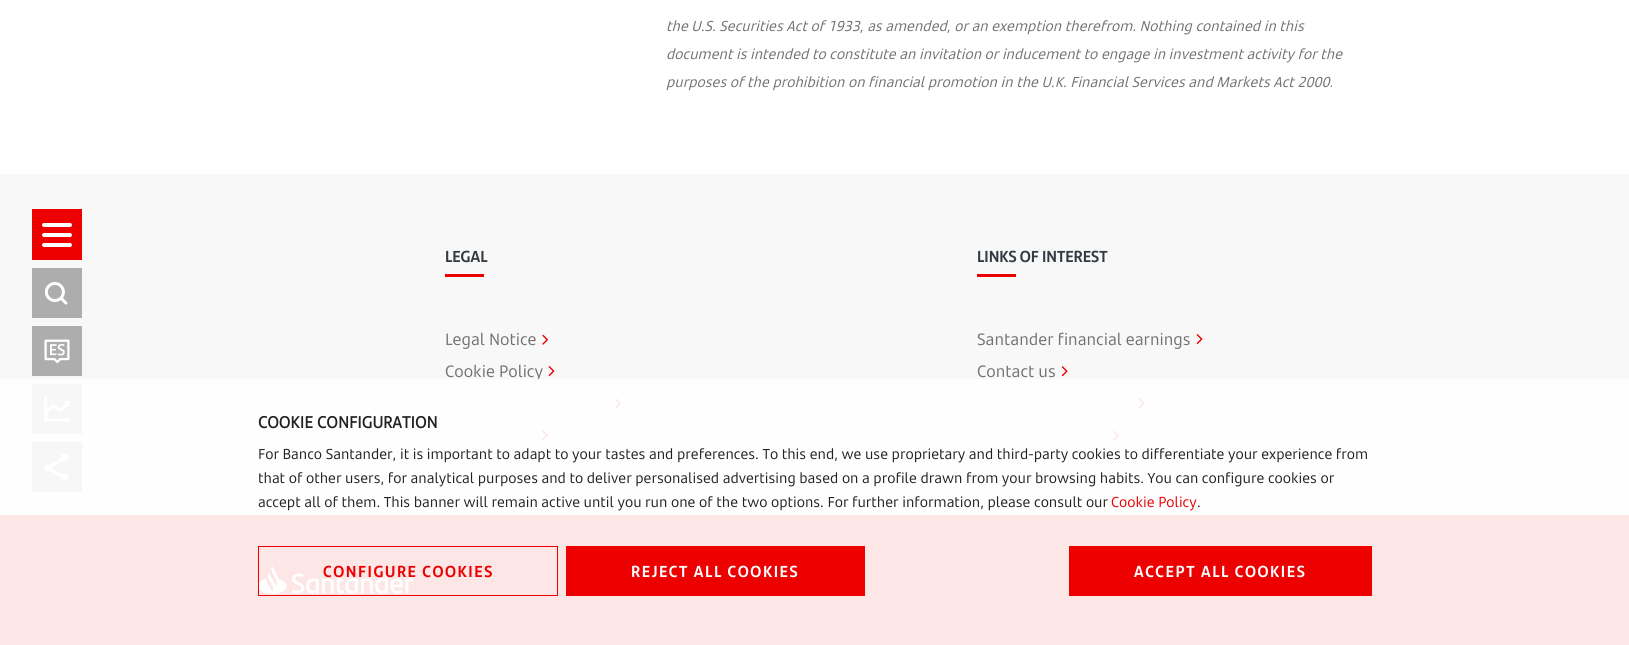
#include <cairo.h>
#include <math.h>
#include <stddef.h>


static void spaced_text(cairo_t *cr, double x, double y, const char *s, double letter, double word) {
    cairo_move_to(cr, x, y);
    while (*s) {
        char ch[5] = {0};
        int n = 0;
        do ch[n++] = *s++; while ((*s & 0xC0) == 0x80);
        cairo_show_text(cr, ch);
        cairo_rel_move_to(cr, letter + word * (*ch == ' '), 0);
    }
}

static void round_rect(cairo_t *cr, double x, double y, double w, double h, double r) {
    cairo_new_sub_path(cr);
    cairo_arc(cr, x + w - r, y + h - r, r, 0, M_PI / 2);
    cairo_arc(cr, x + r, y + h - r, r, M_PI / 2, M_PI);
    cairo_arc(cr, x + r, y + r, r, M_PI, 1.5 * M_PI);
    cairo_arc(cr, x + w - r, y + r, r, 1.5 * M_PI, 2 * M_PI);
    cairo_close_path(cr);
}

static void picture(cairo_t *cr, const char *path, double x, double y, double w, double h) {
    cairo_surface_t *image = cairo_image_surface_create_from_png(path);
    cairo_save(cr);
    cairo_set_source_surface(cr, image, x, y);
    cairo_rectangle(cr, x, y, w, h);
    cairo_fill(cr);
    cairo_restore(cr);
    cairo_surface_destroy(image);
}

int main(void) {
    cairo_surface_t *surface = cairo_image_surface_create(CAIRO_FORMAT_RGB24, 1629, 645);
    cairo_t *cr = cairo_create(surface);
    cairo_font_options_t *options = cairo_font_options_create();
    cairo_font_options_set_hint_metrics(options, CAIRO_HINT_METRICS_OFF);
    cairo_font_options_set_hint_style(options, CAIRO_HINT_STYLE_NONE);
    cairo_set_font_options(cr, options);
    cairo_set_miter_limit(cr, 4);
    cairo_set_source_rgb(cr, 1, 1, 1);
    cairo_paint(cr);
    cairo_select_font_face(cr, "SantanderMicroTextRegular", CAIRO_FONT_SLANT_ITALIC, CAIRO_FONT_WEIGHT_NORMAL);
    cairo_set_font_size(cr, 14);
    cairo_set_source_rgb(cr, 0.447, 0.447, 0.447);
    cairo_move_to(cr, 666, 31);
    cairo_show_text(cr, "the U.S. Securities Act of 1933, as amended, or an exemption therefrom. Nothing contained in this");
    cairo_move_to(cr, 666, 59);
    cairo_show_text(cr, "document is intended to constitute an invitation or inducement to engage in investment activity for the");
    cairo_move_to(cr, 666, 87);
    cairo_show_text(cr, "purposes of the prohibition on financial promotion in the U.K. Financial Services and Markets Act 2000.");
    cairo_set_source_rgb(cr, 0.969, 0.969, 0.969);
    cairo_rectangle(cr, 0, 174, 1629, 341);
    cairo_fill(cr);
    cairo_set_source_rgb(cr, 0.925, 0, 0);
    cairo_rectangle(cr, 32, 209, 50, 51);
    cairo_fill(cr);
    cairo_set_source_rgb(cr, 1, 1, 1);
    round_rect(cr, 42, 223, 30, 4, 2);
    cairo_fill(cr);
    round_rect(cr, 42, 233, 30, 4, 2);
    cairo_fill(cr);
    round_rect(cr, 42, 243, 30, 4, 2);
    cairo_fill(cr);
    cairo_set_source_rgb(cr, 0.678, 0.678, 0.678);
    cairo_rectangle(cr, 32, 268, 50, 50);
    cairo_fill(cr);
    picture(cr, "img1.png", 44, 282, 24, 23);
    cairo_rectangle(cr, 32, 326, 50, 50);
    cairo_fill(cr);
    picture(cr, "img2.png", 44, 339, 26, 25);
    cairo_rectangle(cr, 32, 384, 50, 50);
    cairo_fill(cr);
    picture(cr, "img3.png", 44, 395, 26, 27);
    cairo_rectangle(cr, 32, 442, 50, 50);
    cairo_fill(cr);
    picture(cr, "img4.png", 44, 453, 25, 28);
    cairo_select_font_face(cr, "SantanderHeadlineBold", CAIRO_FONT_SLANT_NORMAL, CAIRO_FONT_WEIGHT_BOLD);
    cairo_set_font_size(cr, 16);
    cairo_set_source_rgb(cr, 0.2, 0.227, 0.259);
    cairo_move_to(cr, 445, 262);
    cairo_show_text(cr, "LEGAL");
    cairo_set_source_rgb(cr, 0.925, 0, 0);
    cairo_rectangle(cr, 445, 274, 39, 3);
    cairo_fill(cr);
    cairo_select_font_face(cr, "SantanderMicroTextRegular", CAIRO_FONT_SLANT_NORMAL, CAIRO_FONT_WEIGHT_NORMAL);
    cairo_set_source_rgb(cr, 0.447, 0.447, 0.447);
    cairo_move_to(cr, 445, 345);
    cairo_show_text(cr, "Legal Notice");
    picture(cr, "img5.png", 542, 334, 6, 11);
    cairo_move_to(cr, 445, 377);
    cairo_show_text(cr, "Cookie Policy");
    picture(cr, "img6.png", 548, 366, 7, 10);
    picture(cr, "img7.png", 615, 398, 6, 11);
    picture(cr, "img8.png", 542, 430, 6, 11);
    cairo_select_font_face(cr, "SantanderHeadlineBold", CAIRO_FONT_SLANT_NORMAL, CAIRO_FONT_WEIGHT_BOLD);
    cairo_set_source_rgb(cr, 0.2, 0.227, 0.259);
    cairo_move_to(cr, 977, 262);
    cairo_show_text(cr, "LINKS OF INTEREST");
    cairo_set_source_rgb(cr, 0.925, 0, 0);
    cairo_rectangle(cr, 977, 274, 39, 3);
    cairo_fill(cr);
    cairo_select_font_face(cr, "SantanderMicroTextRegular", CAIRO_FONT_SLANT_NORMAL, CAIRO_FONT_WEIGHT_NORMAL);
    cairo_set_source_rgb(cr, 0.447, 0.447, 0.447);
    cairo_move_to(cr, 977, 345);
    cairo_show_text(cr, "Santander financial earnings");
    picture(cr, "img9.png", 1196, 334, 7, 10);
    cairo_move_to(cr, 977, 377);
    cairo_show_text(cr, "Contact us");
    picture(cr, "img10.png", 1061, 366, 7, 11);
    picture(cr, "img11.png", 1138, 398, 7, 11);
    picture(cr, "img12.png", 1113, 430, 6, 11);
    cairo_set_source_rgb(cr, 0.925, 0, 0);
    cairo_rectangle(cr, 0, 515, 1629, 130);
    cairo_fill(cr);
    picture(cr, "img13.png", 259, 566, 154, 28);
    cairo_set_source_rgba(cr, 1, 1, 1, 0.9);
    cairo_rectangle(cr, 0, 379, 1629, 266);
    cairo_fill(cr);
    cairo_select_font_face(cr, "SantanderMicroTextRegular", CAIRO_FONT_SLANT_NORMAL, CAIRO_FONT_WEIGHT_BOLD);
    cairo_set_source_rgb(cr, 0.133, 0.133, 0.133);
    cairo_move_to(cr, 258, 428);
    cairo_show_text(cr, "COOKIE CONFIGURATION");
    cairo_select_font_face(cr, "SantanderMicroTextRegular", CAIRO_FONT_SLANT_NORMAL, CAIRO_FONT_WEIGHT_NORMAL);
    cairo_set_font_size(cr, 14);
    cairo_move_to(cr, 258, 459);
    cairo_show_text(cr, "For Banco Santander, it is important to adapt to your tastes and preferences. To this end, we use proprietary and third-party cookies to differentiate your experience from");
    cairo_move_to(cr, 258, 483);
    cairo_show_text(cr, "that of other users, for analytical purposes and to deliver personalised advertising based on a profile drawn from your browsing habits. You can configure cookies or");
    cairo_move_to(cr, 258, 507);
    cairo_show_text(cr, "accept all of them. This banner will remain active until you run one of the two options. For further information, please consult our");
    cairo_set_source_rgb(cr, 0.925, 0, 0);
    cairo_move_to(cr, 1111, 507);
    cairo_show_text(cr, "Cookie Policy");
    cairo_set_source_rgb(cr, 0.133, 0.133, 0.133);
    cairo_move_to(cr, 1197, 507);
    cairo_show_text(cr, ".");
    cairo_rectangle(cr, 258.5, 546.5, 299, 49);
    cairo_set_source_rgb(cr, 0.925, 0, 0);
    cairo_set_line_width(cr, 1);
    cairo_stroke(cr);
    cairo_select_font_face(cr, "SantanderHeadlineBold", CAIRO_FONT_SLANT_NORMAL, CAIRO_FONT_WEIGHT_BOLD);
    cairo_set_font_size(cr, 16);
    spaced_text(cr, 323, 577, "CONFIGURE COOKIES", 1.6, 0);
    cairo_rectangle(cr, 566, 546, 299, 50);
    cairo_fill(cr);
    cairo_set_source_rgb(cr, 1, 1, 1);
    spaced_text(cr, 631, 577, "REJECT ALL COOKIES", 1.6, 0);
    cairo_set_source_rgb(cr, 0.925, 0, 0);
    cairo_rectangle(cr, 1069, 546, 303, 50);
    cairo_fill(cr);
    cairo_set_source_rgb(cr, 1, 1, 1);
    spaced_text(cr, 1134, 577, "ACCEPT ALL COOKIES", 1.6, 0);
    cairo_surface_write_to_png(surface, "page.png");
    cairo_font_options_destroy(options);
    cairo_destroy(cr);
    cairo_surface_destroy(surface);
    return 0;
}
